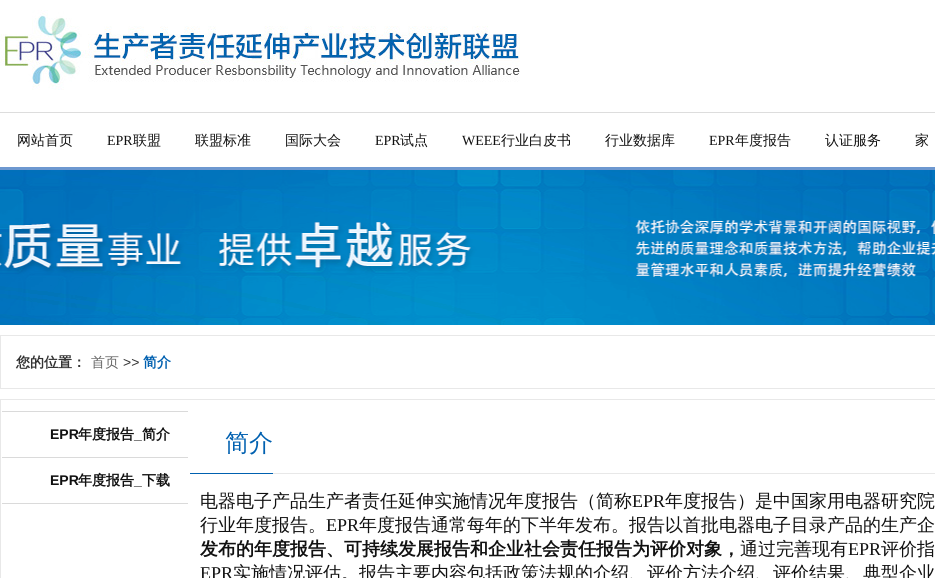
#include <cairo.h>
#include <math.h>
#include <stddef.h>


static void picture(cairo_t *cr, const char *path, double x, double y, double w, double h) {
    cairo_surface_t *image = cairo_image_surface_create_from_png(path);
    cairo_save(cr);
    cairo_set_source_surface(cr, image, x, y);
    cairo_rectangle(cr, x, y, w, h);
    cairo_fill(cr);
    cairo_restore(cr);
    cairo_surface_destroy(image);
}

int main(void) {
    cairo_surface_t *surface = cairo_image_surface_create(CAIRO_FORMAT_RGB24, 935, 578);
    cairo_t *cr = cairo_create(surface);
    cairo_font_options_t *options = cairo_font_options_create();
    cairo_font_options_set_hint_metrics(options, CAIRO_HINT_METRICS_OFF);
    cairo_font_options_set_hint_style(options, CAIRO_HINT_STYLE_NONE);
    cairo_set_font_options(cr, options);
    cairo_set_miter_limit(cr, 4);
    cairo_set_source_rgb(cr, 1, 1, 1);
    cairo_paint(cr);
    picture(cr, "img1.png", 0, 10, 520, 80);
    cairo_set_source_rgb(cr, 0.867, 0.867, 0.867);
    cairo_rectangle(cr, 0, 112, 935, 1);
    cairo_fill(cr);
    cairo_select_font_face(cr, "WenQuanYi Zen Hei Medium", CAIRO_FONT_SLANT_NORMAL, CAIRO_FONT_WEIGHT_NORMAL);
    cairo_set_font_size(cr, 14);
    cairo_set_source_rgb(cr, 0.067, 0.067, 0.067);
    cairo_move_to(cr, 17, 145);
    cairo_show_text(cr, "网站首页");
    cairo_select_font_face(cr, "Liberation Serif", CAIRO_FONT_SLANT_NORMAL, CAIRO_FONT_WEIGHT_NORMAL);
    cairo_move_to(cr, 107, 145);
    cairo_show_text(cr, "EPR");
    cairo_select_font_face(cr, "WenQuanYi Zen Hei Medium", CAIRO_FONT_SLANT_NORMAL, CAIRO_FONT_WEIGHT_NORMAL);
    cairo_move_to(cr, 133, 145);
    cairo_show_text(cr, "联盟");
    cairo_move_to(cr, 195, 145);
    cairo_show_text(cr, "联盟标准");
    cairo_move_to(cr, 285, 145);
    cairo_show_text(cr, "国际大会");
    cairo_select_font_face(cr, "Liberation Serif", CAIRO_FONT_SLANT_NORMAL, CAIRO_FONT_WEIGHT_NORMAL);
    cairo_move_to(cr, 375, 145);
    cairo_show_text(cr, "EPR");
    cairo_select_font_face(cr, "WenQuanYi Zen Hei Medium", CAIRO_FONT_SLANT_NORMAL, CAIRO_FONT_WEIGHT_NORMAL);
    cairo_move_to(cr, 400, 145);
    cairo_show_text(cr, "试点");
    cairo_select_font_face(cr, "Liberation Serif", CAIRO_FONT_SLANT_NORMAL, CAIRO_FONT_WEIGHT_NORMAL);
    cairo_move_to(cr, 462, 145);
    cairo_show_text(cr, "WEEE");
    cairo_select_font_face(cr, "WenQuanYi Zen Hei Medium", CAIRO_FONT_SLANT_NORMAL, CAIRO_FONT_WEIGHT_NORMAL);
    cairo_move_to(cr, 501, 145);
    cairo_show_text(cr, "行业白皮书");
    cairo_move_to(cr, 605, 145);
    cairo_show_text(cr, "行业数据库");
    cairo_select_font_face(cr, "Liberation Serif", CAIRO_FONT_SLANT_NORMAL, CAIRO_FONT_WEIGHT_NORMAL);
    cairo_move_to(cr, 709, 145);
    cairo_show_text(cr, "EPR");
    cairo_select_font_face(cr, "WenQuanYi Zen Hei Medium", CAIRO_FONT_SLANT_NORMAL, CAIRO_FONT_WEIGHT_NORMAL);
    cairo_move_to(cr, 735, 145);
    cairo_show_text(cr, "年度报告");
    cairo_move_to(cr, 825, 145);
    cairo_show_text(cr, "认证服务");
    cairo_move_to(cr, 915, 145);
    cairo_show_text(cr, "家");
    picture(cr, "img2.png", 0, 170, 935, 155);
    cairo_set_source_rgb(cr, 0.427, 0.596, 0.816);
    cairo_rectangle(cr, 0, 167, 935, 3);
    cairo_fill(cr);
    cairo_rectangle(cr, 0.5, 335.5, 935, 53);
    cairo_set_source_rgb(cr, 0.91, 0.91, 0.91);
    cairo_set_line_width(cr, 1);
    cairo_stroke(cr);
    cairo_select_font_face(cr, "WenQuanYi Zen Hei", CAIRO_FONT_SLANT_NORMAL, CAIRO_FONT_WEIGHT_BOLD);
    cairo_set_source_rgb(cr, 0.2, 0.2, 0.2);
    cairo_move_to(cr, 16, 367);
    cairo_show_text(cr, "您的位置：");
    cairo_select_font_face(cr, "WenQuanYi Zen Hei Medium", CAIRO_FONT_SLANT_NORMAL, CAIRO_FONT_WEIGHT_NORMAL);
    cairo_set_source_rgb(cr, 0.4, 0.4, 0.4);
    cairo_move_to(cr, 91, 367);
    cairo_show_text(cr, "首页");
    cairo_select_font_face(cr, "Liberation Sans", CAIRO_FONT_SLANT_NORMAL, CAIRO_FONT_WEIGHT_NORMAL);
    cairo_set_source_rgb(cr, 0.2, 0.2, 0.2);
    cairo_move_to(cr, 123, 367);
    cairo_show_text(cr, ">>");
    cairo_select_font_face(cr, "WenQuanYi Zen Hei", CAIRO_FONT_SLANT_NORMAL, CAIRO_FONT_WEIGHT_BOLD);
    cairo_set_source_rgb(cr, 0, 0.376, 0.69);
    cairo_move_to(cr, 143, 367);
    cairo_show_text(cr, "简介");
    cairo_rectangle(cr, 0.5, 399.5, 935, 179);
    cairo_set_source_rgb(cr, 0.91, 0.91, 0.91);
    cairo_stroke(cr);
    cairo_set_source_rgb(cr, 0.855, 0.855, 0.855);
    cairo_rectangle(cr, 2, 411, 186, 1);
    cairo_fill(cr);
    cairo_rectangle(cr, 2, 457, 186, 1);
    cairo_fill(cr);
    cairo_select_font_face(cr, "Liberation Sans", CAIRO_FONT_SLANT_NORMAL, CAIRO_FONT_WEIGHT_BOLD);
    cairo_set_source_rgb(cr, 0.067, 0.067, 0.067);
    cairo_move_to(cr, 50, 439);
    cairo_show_text(cr, "EPR");
    cairo_select_font_face(cr, "WenQuanYi Zen Hei", CAIRO_FONT_SLANT_NORMAL, CAIRO_FONT_WEIGHT_BOLD);
    cairo_move_to(cr, 78, 439);
    cairo_show_text(cr, "年度报告");
    cairo_select_font_face(cr, "Liberation Sans", CAIRO_FONT_SLANT_NORMAL, CAIRO_FONT_WEIGHT_BOLD);
    cairo_move_to(cr, 134, 439);
    cairo_show_text(cr, "_");
    cairo_select_font_face(cr, "WenQuanYi Zen Hei", CAIRO_FONT_SLANT_NORMAL, CAIRO_FONT_WEIGHT_BOLD);
    cairo_move_to(cr, 142, 439);
    cairo_show_text(cr, "简介");
    cairo_set_source_rgb(cr, 0.855, 0.855, 0.855);
    cairo_rectangle(cr, 2, 503, 186, 1);
    cairo_fill(cr);
    cairo_select_font_face(cr, "Liberation Sans", CAIRO_FONT_SLANT_NORMAL, CAIRO_FONT_WEIGHT_BOLD);
    cairo_set_source_rgb(cr, 0.067, 0.067, 0.067);
    cairo_move_to(cr, 50, 485);
    cairo_show_text(cr, "EPR");
    cairo_select_font_face(cr, "WenQuanYi Zen Hei", CAIRO_FONT_SLANT_NORMAL, CAIRO_FONT_WEIGHT_BOLD);
    cairo_move_to(cr, 78, 485);
    cairo_show_text(cr, "年度报告");
    cairo_select_font_face(cr, "Liberation Sans", CAIRO_FONT_SLANT_NORMAL, CAIRO_FONT_WEIGHT_BOLD);
    cairo_move_to(cr, 134, 485);
    cairo_show_text(cr, "_");
    cairo_select_font_face(cr, "WenQuanYi Zen Hei", CAIRO_FONT_SLANT_NORMAL, CAIRO_FONT_WEIGHT_BOLD);
    cairo_move_to(cr, 142, 485);
    cairo_show_text(cr, "下载");
    cairo_set_source_rgb(cr, 0.91, 0.91, 0.91);
    cairo_rectangle(cr, 273, 473, 662, 1);
    cairo_fill(cr);
    cairo_set_source_rgb(cr, 0, 0.38, 0.69);
    cairo_rectangle(cr, 190, 473, 83, 1);
    cairo_fill(cr);
    cairo_select_font_face(cr, "WenQuanYi Zen Hei Medium", CAIRO_FONT_SLANT_NORMAL, CAIRO_FONT_WEIGHT_NORMAL);
    cairo_set_font_size(cr, 24);
    cairo_set_source_rgb(cr, 0, 0.376, 0.69);
    cairo_move_to(cr, 225, 451);
    cairo_show_text(cr, "简介");
    cairo_set_font_size(cr, 18);
    cairo_set_source_rgb(cr, 0.067, 0.067, 0.067);
    cairo_move_to(cr, 200, 507);
    cairo_show_text(cr, "电器电子产品生产者责任延伸实施情况年度报告（简称");
    cairo_select_font_face(cr, "Liberation Serif", CAIRO_FONT_SLANT_NORMAL, CAIRO_FONT_WEIGHT_NORMAL);
    cairo_move_to(cr, 632, 507);
    cairo_show_text(cr, "EPR");
    cairo_select_font_face(cr, "WenQuanYi Zen Hei Medium", CAIRO_FONT_SLANT_NORMAL, CAIRO_FONT_WEIGHT_NORMAL);
    cairo_move_to(cr, 665, 507);
    cairo_show_text(cr, "年度报告）是中国家用电器研究院");
    cairo_move_to(cr, 200, 531);
    cairo_show_text(cr, "行业年度报告。");
    cairo_select_font_face(cr, "Liberation Serif", CAIRO_FONT_SLANT_NORMAL, CAIRO_FONT_WEIGHT_NORMAL);
    cairo_move_to(cr, 326, 531);
    cairo_show_text(cr, "EPR");
    cairo_select_font_face(cr, "WenQuanYi Zen Hei Medium", CAIRO_FONT_SLANT_NORMAL, CAIRO_FONT_WEIGHT_NORMAL);
    cairo_move_to(cr, 359, 531);
    cairo_show_text(cr, "年度报告通常每年的下半年发布。报告以首批电器电子目录产品的生产企");
    cairo_select_font_face(cr, "WenQuanYi Zen Hei", CAIRO_FONT_SLANT_NORMAL, CAIRO_FONT_WEIGHT_BOLD);
    cairo_move_to(cr, 200, 555);
    cairo_show_text(cr, "发布的年度报告、可持续发展报告和企业社会责任报告为评价对象，");
    cairo_select_font_face(cr, "WenQuanYi Zen Hei Medium", CAIRO_FONT_SLANT_NORMAL, CAIRO_FONT_WEIGHT_NORMAL);
    cairo_move_to(cr, 740, 555);
    cairo_show_text(cr, "通过完善现有");
    cairo_select_font_face(cr, "Liberation Serif", CAIRO_FONT_SLANT_NORMAL, CAIRO_FONT_WEIGHT_NORMAL);
    cairo_move_to(cr, 848, 555);
    cairo_show_text(cr, "EPR");
    cairo_select_font_face(cr, "WenQuanYi Zen Hei Medium", CAIRO_FONT_SLANT_NORMAL, CAIRO_FONT_WEIGHT_NORMAL);
    cairo_move_to(cr, 881, 555);
    cairo_show_text(cr, "评价指");
    cairo_select_font_face(cr, "Liberation Serif", CAIRO_FONT_SLANT_NORMAL, CAIRO_FONT_WEIGHT_NORMAL);
    cairo_move_to(cr, 200, 579);
    cairo_show_text(cr, "EPR");
    cairo_select_font_face(cr, "WenQuanYi Zen Hei Medium", CAIRO_FONT_SLANT_NORMAL, CAIRO_FONT_WEIGHT_NORMAL);
    cairo_move_to(cr, 233, 579);
    cairo_show_text(cr, "实施情况评估。报告主要内容包括政策法规的介绍、评价方法介绍、评价结果、典型企业");
    cairo_surface_write_to_png(surface, "page.png");
    cairo_font_options_destroy(options);
    cairo_destroy(cr);
    cairo_surface_destroy(surface);
    return 0;
}
